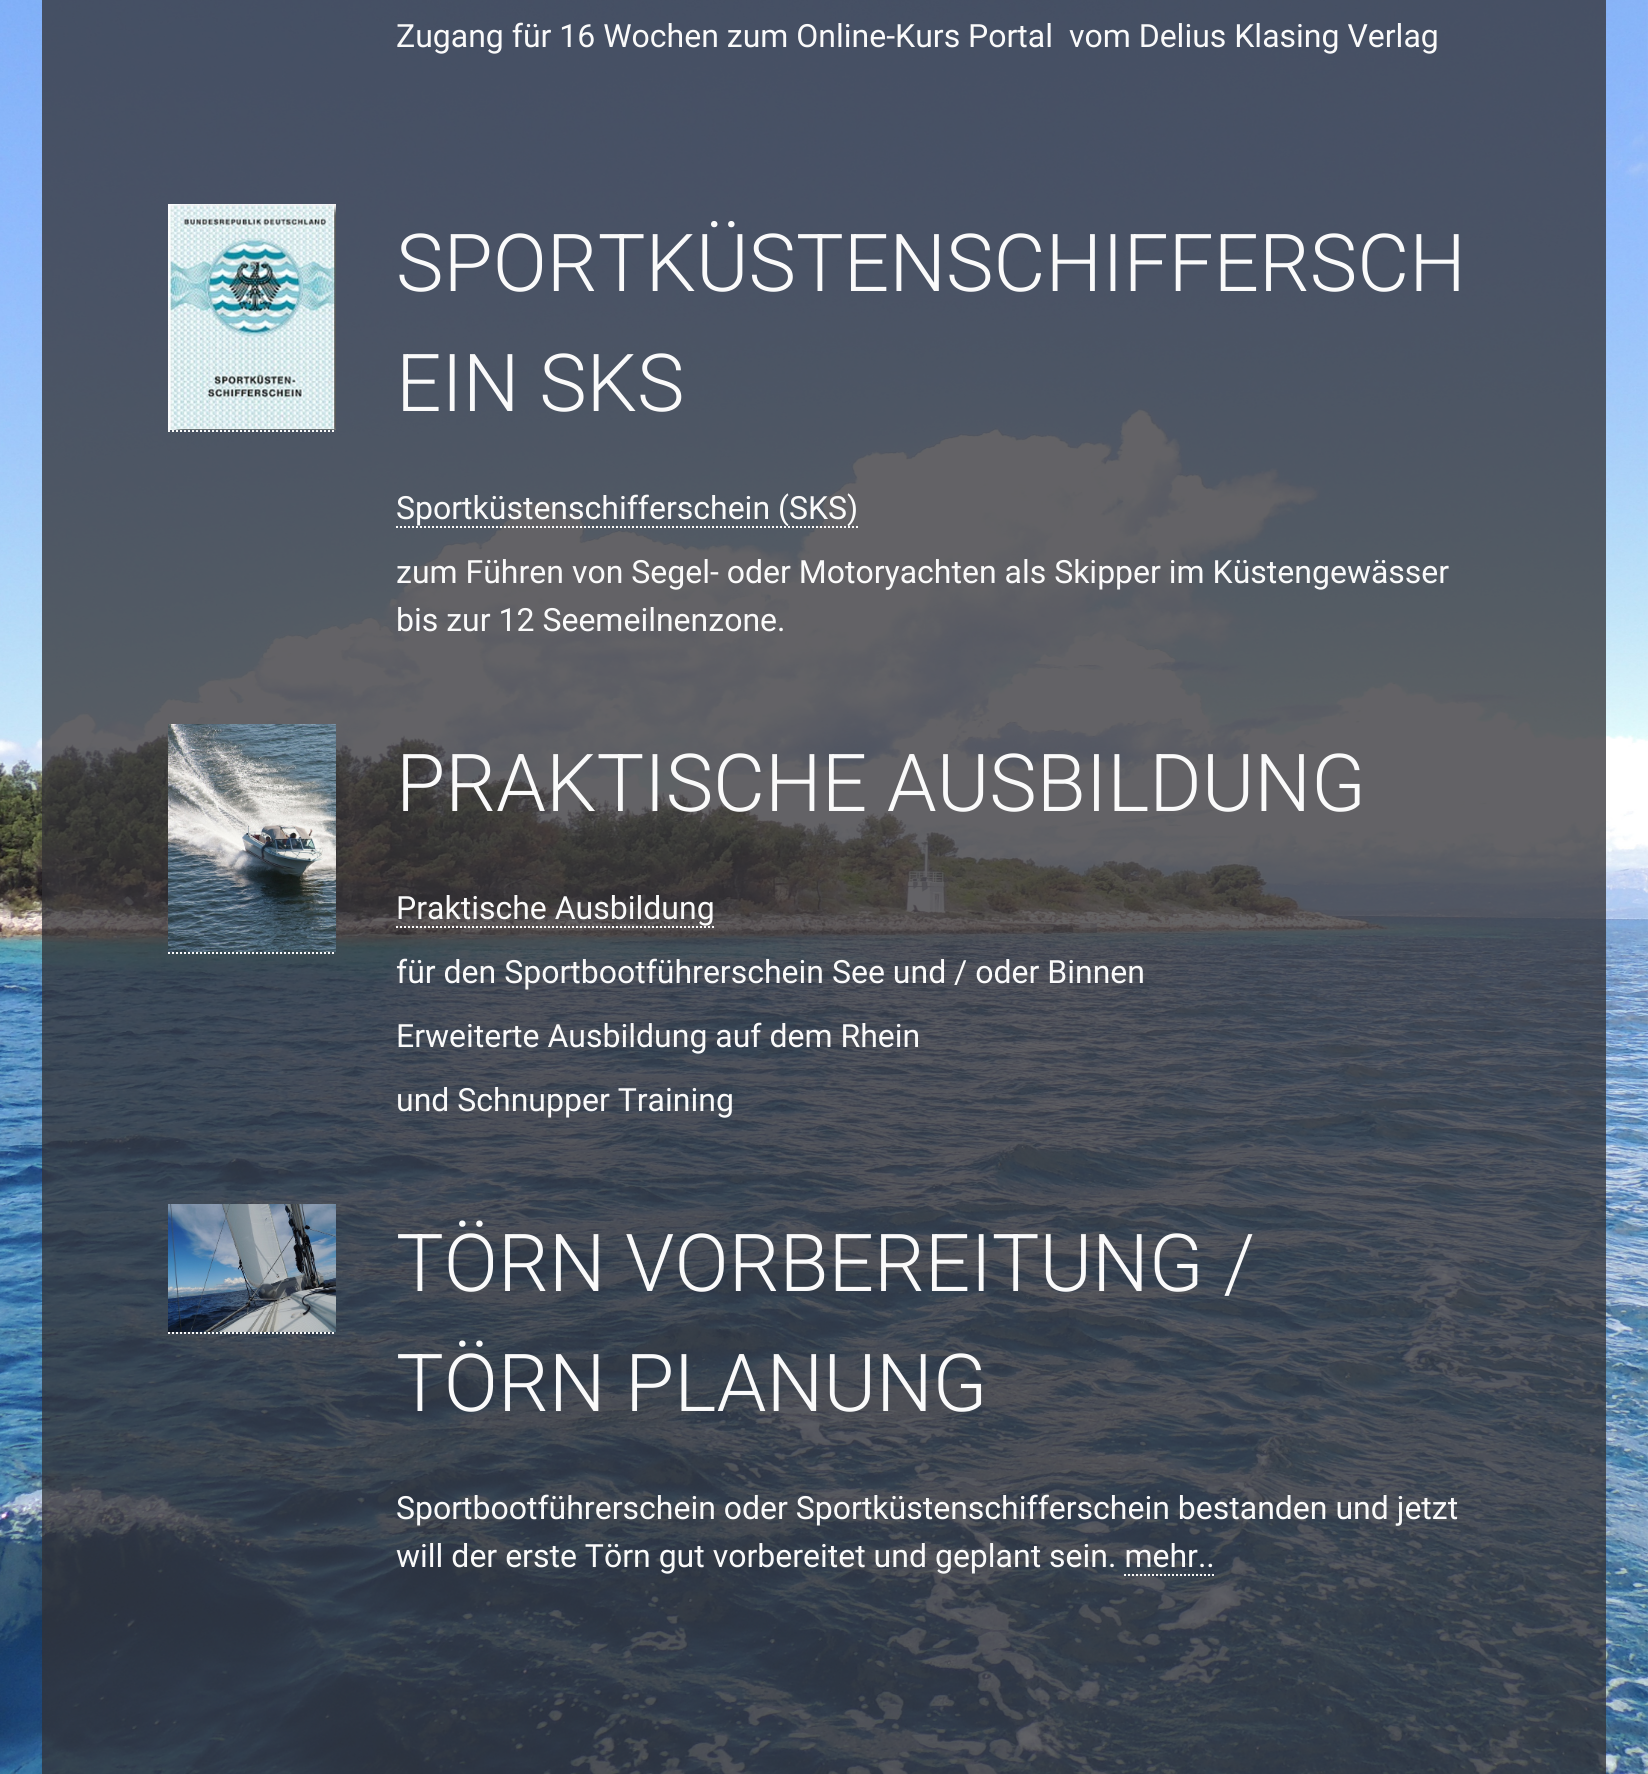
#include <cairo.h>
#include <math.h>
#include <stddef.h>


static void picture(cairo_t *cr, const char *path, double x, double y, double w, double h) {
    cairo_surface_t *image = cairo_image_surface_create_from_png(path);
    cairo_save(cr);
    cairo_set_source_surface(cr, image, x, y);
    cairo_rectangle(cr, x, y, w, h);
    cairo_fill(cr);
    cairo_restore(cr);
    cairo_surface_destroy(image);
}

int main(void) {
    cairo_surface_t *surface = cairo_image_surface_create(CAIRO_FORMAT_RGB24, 1648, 1774);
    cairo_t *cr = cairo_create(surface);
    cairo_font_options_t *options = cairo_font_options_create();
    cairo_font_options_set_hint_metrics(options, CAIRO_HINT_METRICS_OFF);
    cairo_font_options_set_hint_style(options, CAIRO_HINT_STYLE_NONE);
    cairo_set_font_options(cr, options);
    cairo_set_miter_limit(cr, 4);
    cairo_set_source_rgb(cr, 1, 1, 1);
    cairo_paint(cr);
    picture(cr, "img1.png", 0, 0, 1648, 1774);
    cairo_select_font_face(cr, "Roboto", CAIRO_FONT_SLANT_NORMAL, CAIRO_FONT_WEIGHT_NORMAL);
    cairo_set_font_size(cr, 32);
    cairo_set_source_rgb(cr, 0.98, 0.98, 0.98);
    cairo_move_to(cr, 396, 47);
    cairo_show_text(cr, "Zugang für 16 Wochen zum Online-Kurs Portal  vom Delius Klasing Verlag");
    cairo_new_path(cr);
    cairo_move_to(cr, 168, 431);
    cairo_line_to(cr, 336, 431);
    cairo_set_dash(cr, (double[]){2, 2}, 2, 0);
    cairo_stroke(cr);
    picture(cr, "img2.png", 168, 204, 168, 226);
    cairo_select_font_face(cr, "Roboto Light", CAIRO_FONT_SLANT_NORMAL, CAIRO_FONT_WEIGHT_NORMAL);
    cairo_set_font_size(cr, 80);
    cairo_move_to(cr, 396, 291);
    cairo_show_text(cr, "SPORTKÜSTENSCHIFFERSCH");
    cairo_move_to(cr, 396, 411);
    cairo_show_text(cr, "EIN SKS");
    cairo_new_path(cr);
    cairo_move_to(cr, 396, 527);
    cairo_line_to(cr, 858, 527);
    cairo_stroke(cr);
    cairo_select_font_face(cr, "Roboto", CAIRO_FONT_SLANT_NORMAL, CAIRO_FONT_WEIGHT_NORMAL);
    cairo_set_font_size(cr, 32);
    cairo_move_to(cr, 396, 519);
    cairo_show_text(cr, "Sportküstenschifferschein (SKS)");
    cairo_move_to(cr, 396, 583);
    cairo_show_text(cr, "zum Führen von Segel- oder Motoryachten als Skipper im Küstengewässer");
    cairo_move_to(cr, 396, 631);
    cairo_show_text(cr, "bis zur 12 Seemeilnenzone.");
    cairo_new_path(cr);
    cairo_move_to(cr, 168, 953);
    cairo_line_to(cr, 336, 953);
    cairo_stroke(cr);
    picture(cr, "img3.png", 168, 724, 168, 228);
    cairo_select_font_face(cr, "Roboto Light", CAIRO_FONT_SLANT_NORMAL, CAIRO_FONT_WEIGHT_NORMAL);
    cairo_set_font_size(cr, 80);
    cairo_move_to(cr, 396, 811);
    cairo_show_text(cr, "PRAKTISCHE AUSBILDUNG");
    cairo_select_font_face(cr, "Roboto", CAIRO_FONT_SLANT_NORMAL, CAIRO_FONT_WEIGHT_NORMAL);
    cairo_set_font_size(cr, 32);
    cairo_move_to(cr, 396, 919);
    cairo_show_text(cr, "Praktische Ausbildung");
    cairo_new_path(cr);
    cairo_move_to(cr, 396, 927);
    cairo_line_to(cr, 714, 927);
    cairo_stroke(cr);
    cairo_move_to(cr, 396, 983);
    cairo_show_text(cr, "für den Sportbootführerschein See und / oder Binnen");
    cairo_move_to(cr, 396, 1047);
    cairo_show_text(cr, "Erweiterte Ausbildung auf dem Rhein");
    cairo_move_to(cr, 396, 1111);
    cairo_show_text(cr, "und Schnupper Training");
    cairo_new_path(cr);
    cairo_move_to(cr, 168, 1333);
    cairo_line_to(cr, 336, 1333);
    cairo_stroke(cr);
    picture(cr, "img4.png", 168, 1204, 168, 128);
    cairo_select_font_face(cr, "Roboto Light", CAIRO_FONT_SLANT_NORMAL, CAIRO_FONT_WEIGHT_NORMAL);
    cairo_set_font_size(cr, 80);
    cairo_move_to(cr, 396, 1291);
    cairo_show_text(cr, "TÖRN VORBEREITUNG /");
    cairo_move_to(cr, 396, 1411);
    cairo_show_text(cr, "TÖRN PLANUNG");
    cairo_select_font_face(cr, "Roboto", CAIRO_FONT_SLANT_NORMAL, CAIRO_FONT_WEIGHT_NORMAL);
    cairo_set_font_size(cr, 32);
    cairo_move_to(cr, 396, 1519);
    cairo_show_text(cr, "Sportbootführerschein oder Sportküstenschifferschein bestanden und jetzt");
    cairo_move_to(cr, 396, 1567);
    cairo_show_text(cr, "will der erste Törn gut vorbereitet und geplant sein. mehr..");
    cairo_new_path(cr);
    cairo_move_to(cr, 1124, 1575);
    cairo_line_to(cr, 1214, 1575);
    cairo_stroke(cr);
    cairo_surface_write_to_png(surface, "page.png");
    cairo_font_options_destroy(options);
    cairo_destroy(cr);
    cairo_surface_destroy(surface);
    return 0;
}
